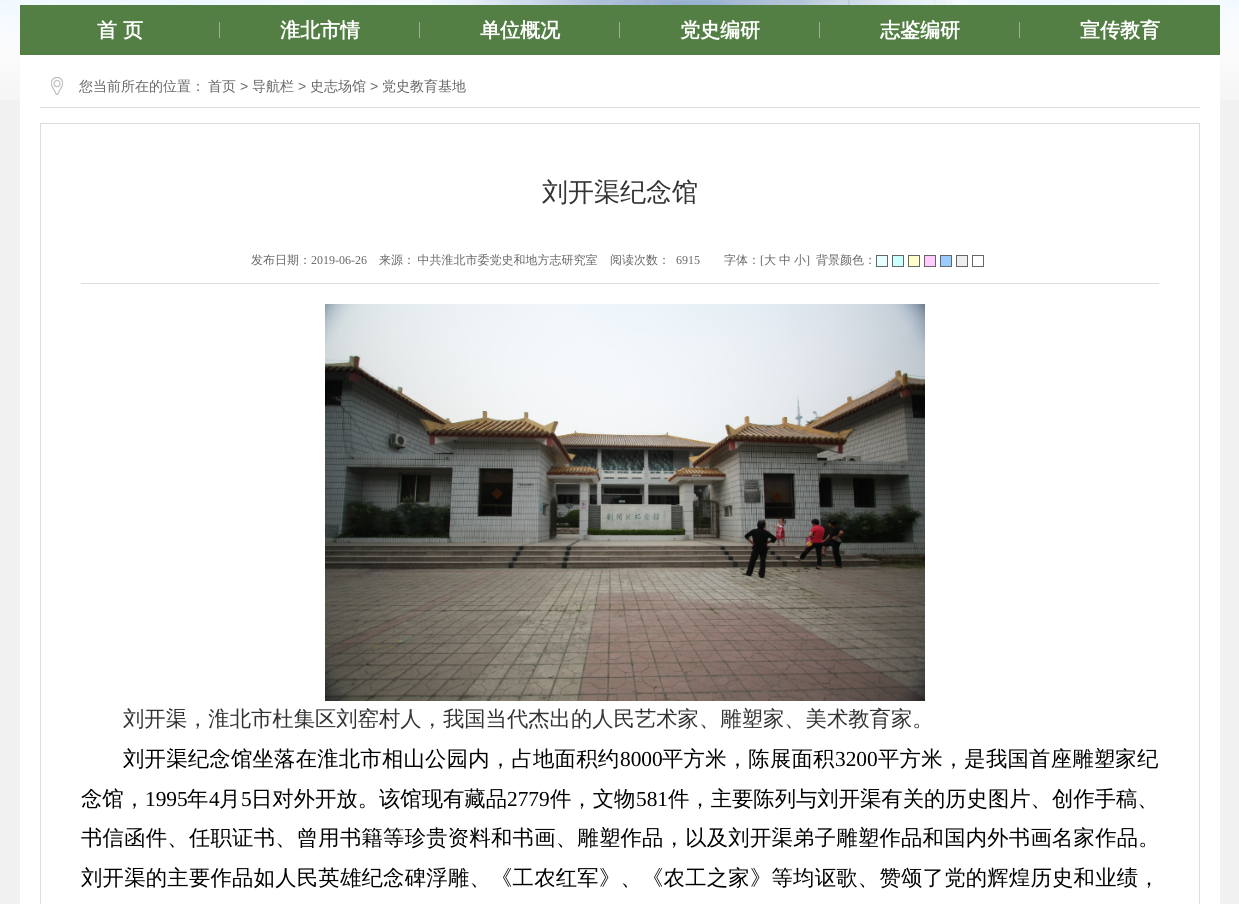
#include <cairo.h>
#include <math.h>
#include <stddef.h>


static void spaced_text(cairo_t *cr, double x, double y, const char *s, double letter, double word) {
    cairo_move_to(cr, x, y);
    while (*s) {
        char ch[5] = {0};
        int n = 0;
        do ch[n++] = *s++; while ((*s & 0xC0) == 0x80);
        cairo_show_text(cr, ch);
        cairo_rel_move_to(cr, letter + word * (*ch == ' '), 0);
    }
}

static void picture(cairo_t *cr, const char *path, double x, double y, double w, double h) {
    cairo_surface_t *image = cairo_image_surface_create_from_png(path);
    cairo_save(cr);
    cairo_set_source_surface(cr, image, x, y);
    cairo_rectangle(cr, x, y, w, h);
    cairo_fill(cr);
    cairo_restore(cr);
    cairo_surface_destroy(image);
}

int main(void) {
    cairo_surface_t *surface = cairo_image_surface_create(CAIRO_FORMAT_RGB24, 1239, 904);
    cairo_t *cr = cairo_create(surface);
    cairo_font_options_t *options = cairo_font_options_create();
    cairo_font_options_set_hint_metrics(options, CAIRO_HINT_METRICS_OFF);
    cairo_font_options_set_hint_style(options, CAIRO_HINT_STYLE_NONE);
    cairo_set_font_options(cr, options);
    cairo_set_miter_limit(cr, 4);
    cairo_set_source_rgb(cr, 0.945, 0.945, 0.945);
    cairo_paint(cr);
    picture(cr, "img1.png", 0, 0, 1239, 100);
    picture(cr, "img2.png", 432, 0, 521, 5);
    cairo_set_source_rgb(cr, 0.325, 0.498, 0.267);
    cairo_rectangle(cr, 20, 5, 1200, 50);
    cairo_fill(cr);
    cairo_set_source_rgb(cr, 0.596, 0.698, 0.561);
    cairo_rectangle(cr, 219, 22, 1, 16);
    cairo_fill(cr);
    cairo_select_font_face(cr, "WenQuanYi Zen Hei", CAIRO_FONT_SLANT_NORMAL, CAIRO_FONT_WEIGHT_BOLD);
    cairo_set_font_size(cr, 20);
    cairo_set_source_rgb(cr, 1, 1, 1);
    cairo_move_to(cr, 97, 37);
    cairo_show_text(cr, "首 页");
    cairo_set_source_rgb(cr, 0.596, 0.698, 0.561);
    cairo_rectangle(cr, 419, 22, 1, 16);
    cairo_fill(cr);
    cairo_set_source_rgb(cr, 1, 1, 1);
    cairo_move_to(cr, 280, 37);
    cairo_show_text(cr, "淮北市情");
    cairo_set_source_rgb(cr, 0.596, 0.698, 0.561);
    cairo_rectangle(cr, 619, 22, 1, 16);
    cairo_fill(cr);
    cairo_set_source_rgb(cr, 1, 1, 1);
    cairo_move_to(cr, 480, 37);
    cairo_show_text(cr, "单位概况");
    cairo_set_source_rgb(cr, 0.596, 0.698, 0.561);
    cairo_rectangle(cr, 819, 22, 1, 16);
    cairo_fill(cr);
    cairo_set_source_rgb(cr, 1, 1, 1);
    cairo_move_to(cr, 680, 37);
    cairo_show_text(cr, "党史编研");
    cairo_set_source_rgb(cr, 0.596, 0.698, 0.561);
    cairo_rectangle(cr, 1019, 22, 1, 16);
    cairo_fill(cr);
    cairo_set_source_rgb(cr, 1, 1, 1);
    cairo_move_to(cr, 880, 37);
    cairo_show_text(cr, "志鉴编研");
    cairo_move_to(cr, 1080, 37);
    cairo_show_text(cr, "宣传教育");
    cairo_rectangle(cr, 20, 55, 1200, 849);
    cairo_fill(cr);
    picture(cr, "img3.png", 51, 77, 12, 18);
    cairo_set_source_rgb(cr, 0.867, 0.867, 0.867);
    cairo_rectangle(cr, 40, 107, 1160, 1);
    cairo_fill(cr);
    cairo_select_font_face(cr, "WenQuanYi Zen Hei Medium", CAIRO_FONT_SLANT_NORMAL, CAIRO_FONT_WEIGHT_NORMAL);
    cairo_set_font_size(cr, 14);
    cairo_set_source_rgb(cr, 0.4, 0.4, 0.4);
    cairo_move_to(cr, 79, 91);
    cairo_show_text(cr, "您当前所在的位置：");
    cairo_move_to(cr, 208, 91);
    cairo_show_text(cr, "首页");
    cairo_select_font_face(cr, "Liberation Sans", CAIRO_FONT_SLANT_NORMAL, CAIRO_FONT_WEIGHT_NORMAL);
    cairo_move_to(cr, 240, 91);
    cairo_show_text(cr, ">");
    cairo_select_font_face(cr, "WenQuanYi Zen Hei Medium", CAIRO_FONT_SLANT_NORMAL, CAIRO_FONT_WEIGHT_NORMAL);
    cairo_move_to(cr, 252, 91);
    cairo_show_text(cr, "导航栏");
    cairo_select_font_face(cr, "Liberation Sans", CAIRO_FONT_SLANT_NORMAL, CAIRO_FONT_WEIGHT_NORMAL);
    cairo_move_to(cr, 298, 91);
    cairo_show_text(cr, ">");
    cairo_select_font_face(cr, "WenQuanYi Zen Hei Medium", CAIRO_FONT_SLANT_NORMAL, CAIRO_FONT_WEIGHT_NORMAL);
    cairo_move_to(cr, 310, 91);
    cairo_show_text(cr, "史志场馆");
    cairo_select_font_face(cr, "Liberation Sans", CAIRO_FONT_SLANT_NORMAL, CAIRO_FONT_WEIGHT_NORMAL);
    cairo_move_to(cr, 370, 91);
    cairo_show_text(cr, ">");
    cairo_select_font_face(cr, "WenQuanYi Zen Hei Medium", CAIRO_FONT_SLANT_NORMAL, CAIRO_FONT_WEIGHT_NORMAL);
    cairo_move_to(cr, 382, 91);
    cairo_show_text(cr, "党史教育基地");
    cairo_rectangle(cr, 40.5, 123.5, 1159, 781);
    cairo_set_source_rgb(cr, 0.867, 0.867, 0.867);
    cairo_set_line_width(cr, 1);
    cairo_stroke(cr);
    cairo_set_font_size(cr, 26);
    cairo_set_source_rgb(cr, 0.2, 0.2, 0.2);
    cairo_move_to(cr, 542, 201);
    cairo_show_text(cr, "刘开渠纪念馆");
    cairo_set_source_rgb(cr, 0.867, 0.867, 0.867);
    cairo_rectangle(cr, 81, 283, 1078, 1);
    cairo_fill(cr);
    cairo_set_font_size(cr, 12);
    cairo_set_source_rgb(cr, 0.4, 0.4, 0.4);
    cairo_move_to(cr, 251, 264);
    cairo_show_text(cr, "发布日期：");
    cairo_select_font_face(cr, "Liberation Serif", CAIRO_FONT_SLANT_NORMAL, CAIRO_FONT_WEIGHT_NORMAL);
    cairo_move_to(cr, 311, 264);
    cairo_show_text(cr, "2019-06-26");
    cairo_select_font_face(cr, "WenQuanYi Zen Hei Medium", CAIRO_FONT_SLANT_NORMAL, CAIRO_FONT_WEIGHT_NORMAL);
    spaced_text(cr, 379, 264, "来源： 中共淮北市委党史和地方志研究室", 0, -1);
    cairo_move_to(cr, 610, 264);
    cairo_show_text(cr, "阅读次数：");
    cairo_select_font_face(cr, "Liberation Serif", CAIRO_FONT_SLANT_NORMAL, CAIRO_FONT_WEIGHT_NORMAL);
    cairo_move_to(cr, 676, 264);
    cairo_show_text(cr, "6915");
    cairo_select_font_face(cr, "WenQuanYi Zen Hei Medium", CAIRO_FONT_SLANT_NORMAL, CAIRO_FONT_WEIGHT_NORMAL);
    cairo_move_to(cr, 724, 264);
    cairo_show_text(cr, "字体：");
    cairo_select_font_face(cr, "Liberation Serif", CAIRO_FONT_SLANT_NORMAL, CAIRO_FONT_WEIGHT_NORMAL);
    cairo_move_to(cr, 760, 264);
    cairo_show_text(cr, "[");
    cairo_select_font_face(cr, "WenQuanYi Zen Hei Medium", CAIRO_FONT_SLANT_NORMAL, CAIRO_FONT_WEIGHT_NORMAL);
    cairo_move_to(cr, 764, 264);
    cairo_show_text(cr, "大");
    cairo_move_to(cr, 779, 264);
    cairo_show_text(cr, "中");
    cairo_move_to(cr, 794, 264);
    cairo_show_text(cr, "小");
    cairo_select_font_face(cr, "Liberation Serif", CAIRO_FONT_SLANT_NORMAL, CAIRO_FONT_WEIGHT_NORMAL);
    cairo_move_to(cr, 806, 264);
    cairo_show_text(cr, "]");
    cairo_select_font_face(cr, "WenQuanYi Zen Hei Medium", CAIRO_FONT_SLANT_NORMAL, CAIRO_FONT_WEIGHT_NORMAL);
    cairo_move_to(cr, 816, 264);
    cairo_show_text(cr, "背景颜色：");
    cairo_set_source_rgb(cr, 0.902, 1, 1);
    cairo_rectangle(cr, 876.5, 255.5, 11, 11);
    cairo_fill_preserve(cr);
    cairo_set_source_rgb(cr, 0.4, 0.4, 0.4);
    cairo_stroke(cr);
    cairo_set_source_rgb(cr, 0.8, 1, 1);
    cairo_rectangle(cr, 892.5, 255.5, 11, 11);
    cairo_fill_preserve(cr);
    cairo_set_source_rgb(cr, 0.4, 0.4, 0.4);
    cairo_stroke(cr);
    cairo_set_source_rgb(cr, 1, 1, 0.8);
    cairo_rectangle(cr, 908.5, 255.5, 11, 11);
    cairo_fill_preserve(cr);
    cairo_set_source_rgb(cr, 0.4, 0.4, 0.4);
    cairo_stroke(cr);
    cairo_set_source_rgb(cr, 1, 0.8, 1);
    cairo_rectangle(cr, 924.5, 255.5, 11, 11);
    cairo_fill_preserve(cr);
    cairo_set_source_rgb(cr, 0.4, 0.4, 0.4);
    cairo_stroke(cr);
    cairo_set_source_rgb(cr, 0.6, 0.8, 1);
    cairo_rectangle(cr, 940.5, 255.5, 11, 11);
    cairo_fill_preserve(cr);
    cairo_set_source_rgb(cr, 0.4, 0.4, 0.4);
    cairo_stroke(cr);
    cairo_set_source_rgb(cr, 0.933, 0.933, 0.933);
    cairo_rectangle(cr, 956.5, 255.5, 11, 11);
    cairo_fill_preserve(cr);
    cairo_set_source_rgb(cr, 0.4, 0.4, 0.4);
    cairo_stroke(cr);
    cairo_rectangle(cr, 972.5, 255.5, 11, 11);
    cairo_stroke(cr);
    picture(cr, "img4.png", 325, 304, 600, 397);
    cairo_set_font_size(cr, 21.33);
    cairo_set_source_rgb(cr, 0.2, 0.2, 0.2);
    cairo_move_to(cr, 123, 726);
    cairo_show_text(cr, "刘开渠，淮北市杜集区刘窑村人，我国当代杰出的人民艺术家、雕塑家、美术教育家。");
    cairo_set_source_rgb(cr, 0, 0, 0);
    spaced_text(cr, 123, 766, "刘开渠纪念馆坐落在淮北市相山公园内，占地面积约", 0.25, 0);
    cairo_select_font_face(cr, "Liberation Serif", CAIRO_FONT_SLANT_NORMAL, CAIRO_FONT_WEIGHT_NORMAL);
    cairo_move_to(cr, 620, 766);
    cairo_show_text(cr, "8000");
    cairo_select_font_face(cr, "WenQuanYi Zen Hei Medium", CAIRO_FONT_SLANT_NORMAL, CAIRO_FONT_WEIGHT_NORMAL);
    spaced_text(cr, 662, 766, "平方米，陈展面积", 0.25, 0);
    cairo_select_font_face(cr, "Liberation Serif", CAIRO_FONT_SLANT_NORMAL, CAIRO_FONT_WEIGHT_NORMAL);
    cairo_move_to(cr, 835, 766);
    cairo_show_text(cr, "3200");
    cairo_select_font_face(cr, "WenQuanYi Zen Hei Medium", CAIRO_FONT_SLANT_NORMAL, CAIRO_FONT_WEIGHT_NORMAL);
    spaced_text(cr, 878, 766, "平方米，是我国首座雕塑家纪", 0.25, 0);
    cairo_move_to(cr, 81, 806);
    cairo_show_text(cr, "念馆，");
    cairo_select_font_face(cr, "Liberation Serif", CAIRO_FONT_SLANT_NORMAL, CAIRO_FONT_WEIGHT_NORMAL);
    cairo_move_to(cr, 145, 806);
    cairo_show_text(cr, "1995");
    cairo_select_font_face(cr, "WenQuanYi Zen Hei Medium", CAIRO_FONT_SLANT_NORMAL, CAIRO_FONT_WEIGHT_NORMAL);
    cairo_move_to(cr, 187, 806);
    cairo_show_text(cr, "年");
    cairo_select_font_face(cr, "Liberation Serif", CAIRO_FONT_SLANT_NORMAL, CAIRO_FONT_WEIGHT_NORMAL);
    cairo_move_to(cr, 209, 806);
    cairo_show_text(cr, "4");
    cairo_select_font_face(cr, "WenQuanYi Zen Hei Medium", CAIRO_FONT_SLANT_NORMAL, CAIRO_FONT_WEIGHT_NORMAL);
    cairo_move_to(cr, 219, 806);
    cairo_show_text(cr, "月");
    cairo_select_font_face(cr, "Liberation Serif", CAIRO_FONT_SLANT_NORMAL, CAIRO_FONT_WEIGHT_NORMAL);
    cairo_move_to(cr, 241, 806);
    cairo_show_text(cr, "5");
    cairo_select_font_face(cr, "WenQuanYi Zen Hei Medium", CAIRO_FONT_SLANT_NORMAL, CAIRO_FONT_WEIGHT_NORMAL);
    cairo_move_to(cr, 251, 806);
    cairo_show_text(cr, "日对外开放。该馆现有藏品");
    cairo_select_font_face(cr, "Liberation Serif", CAIRO_FONT_SLANT_NORMAL, CAIRO_FONT_WEIGHT_NORMAL);
    cairo_move_to(cr, 507, 806);
    cairo_show_text(cr, "2779");
    cairo_select_font_face(cr, "WenQuanYi Zen Hei Medium", CAIRO_FONT_SLANT_NORMAL, CAIRO_FONT_WEIGHT_NORMAL);
    cairo_move_to(cr, 550, 806);
    cairo_show_text(cr, "件，文物");
    cairo_select_font_face(cr, "Liberation Serif", CAIRO_FONT_SLANT_NORMAL, CAIRO_FONT_WEIGHT_NORMAL);
    cairo_move_to(cr, 636, 806);
    cairo_show_text(cr, "581");
    cairo_select_font_face(cr, "WenQuanYi Zen Hei Medium", CAIRO_FONT_SLANT_NORMAL, CAIRO_FONT_WEIGHT_NORMAL);
    cairo_move_to(cr, 668, 806);
    cairo_show_text(cr, "件，主要陈列与刘开渠有关的历史图片、创作手稿、");
    spaced_text(cr, 81, 845, "书信函件、任职证书、曾用书籍等珍贵资料和书画、雕塑作品，以及刘开渠弟子雕塑作品和国内外书画名家作品。", 0.25, 0);
    spaced_text(cr, 81, 885, "刘开渠的主要作品如人民英雄纪念碑浮雕、《工农红军》、《农工之家》等均讴歌、赞颂了党的辉煌历史和业绩，", 0.25, 0);
    cairo_surface_write_to_png(surface, "page.png");
    cairo_font_options_destroy(options);
    cairo_destroy(cr);
    cairo_surface_destroy(surface);
    return 0;
}
